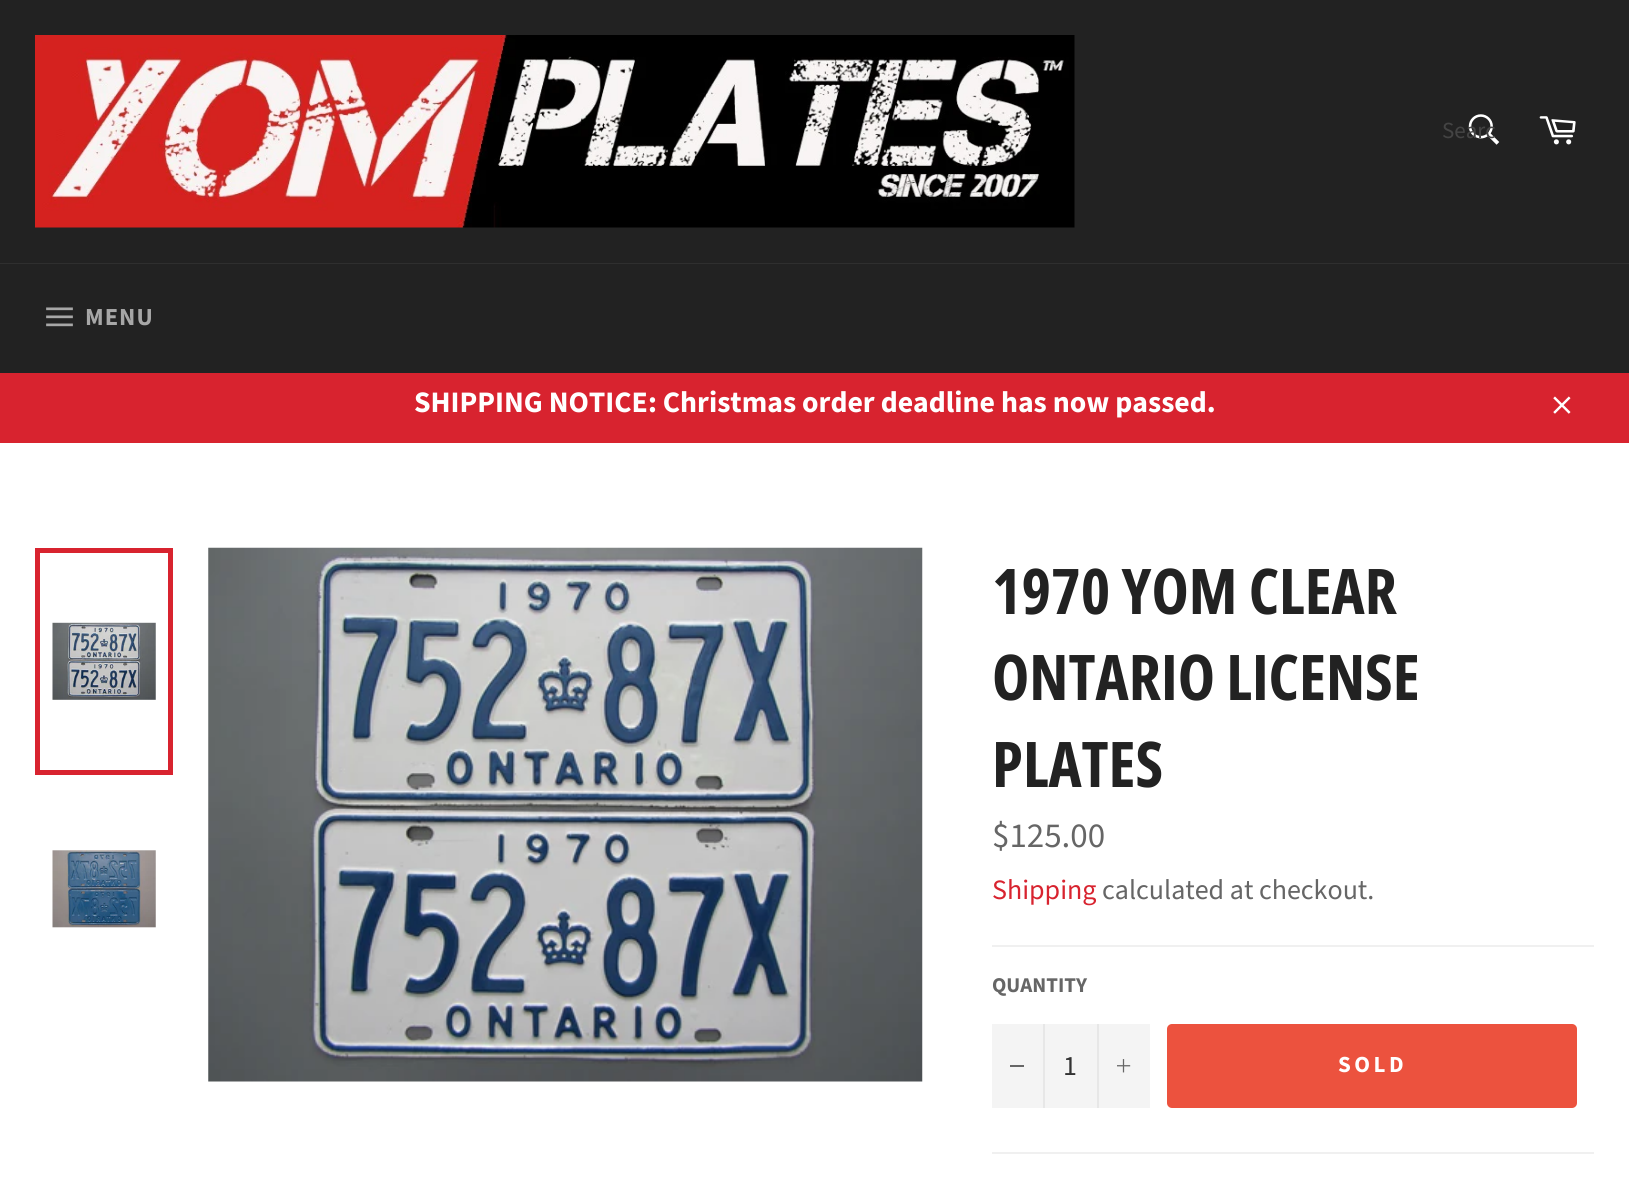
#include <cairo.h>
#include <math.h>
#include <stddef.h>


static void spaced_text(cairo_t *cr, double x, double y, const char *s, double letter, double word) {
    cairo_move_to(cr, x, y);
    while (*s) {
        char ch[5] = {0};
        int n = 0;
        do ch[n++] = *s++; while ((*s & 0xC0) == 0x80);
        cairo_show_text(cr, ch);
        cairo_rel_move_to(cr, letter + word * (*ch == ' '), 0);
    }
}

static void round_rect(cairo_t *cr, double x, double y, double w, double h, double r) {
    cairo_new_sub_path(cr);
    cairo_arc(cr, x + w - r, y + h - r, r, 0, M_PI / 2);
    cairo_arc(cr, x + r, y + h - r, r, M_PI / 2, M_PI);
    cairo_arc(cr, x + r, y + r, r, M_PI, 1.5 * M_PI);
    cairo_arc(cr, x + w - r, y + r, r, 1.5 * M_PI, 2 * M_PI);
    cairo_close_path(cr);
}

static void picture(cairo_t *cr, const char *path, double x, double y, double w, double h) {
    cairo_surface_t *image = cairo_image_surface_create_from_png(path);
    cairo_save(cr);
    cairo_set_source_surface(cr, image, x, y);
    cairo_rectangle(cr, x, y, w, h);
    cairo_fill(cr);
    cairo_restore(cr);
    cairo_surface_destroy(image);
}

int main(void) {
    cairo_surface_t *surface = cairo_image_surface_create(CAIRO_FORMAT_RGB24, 1629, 1200);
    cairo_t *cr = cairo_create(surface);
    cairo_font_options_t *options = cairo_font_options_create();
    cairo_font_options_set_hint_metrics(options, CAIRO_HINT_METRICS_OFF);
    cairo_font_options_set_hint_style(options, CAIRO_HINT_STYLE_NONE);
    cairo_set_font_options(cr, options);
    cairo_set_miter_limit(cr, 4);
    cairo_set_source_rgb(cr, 0.133, 0.133, 0.133);
    cairo_paint(cr);
    picture(cr, "img1.png", 35, 35, 1040, 193);
    picture(cr, "img2.png", 1468, 114, 32, 31);
    cairo_select_font_face(cr, "Source Sans Pro", CAIRO_FONT_SLANT_NORMAL, CAIRO_FONT_WEIGHT_NORMAL);
    cairo_set_font_size(cr, 23);
    cairo_set_source_rgb(cr, 0.267, 0.267, 0.267);
    cairo_move_to(cr, 1442, 138);
    cairo_show_text(cr, "Searc");
    picture(cr, "img3.png", 1539, 116, 37, 29);
    cairo_set_source_rgb(cr, 0.184, 0.184, 0.184);
    cairo_rectangle(cr, 0, 263, 1629, 1);
    cairo_fill(cr);
    picture(cr, "img4.png", 46, 307, 27, 20);
    cairo_select_font_face(cr, "Source Sans Pro", CAIRO_FONT_SLANT_NORMAL, CAIRO_FONT_WEIGHT_BOLD);
    cairo_set_font_size(cr, 24.5);
    cairo_set_source_rgb(cr, 0.655, 0.655, 0.655);
    spaced_text(cr, 85, 325, "MENU", 1, 0);
    cairo_set_source_rgb(cr, 0.847, 0.137, 0.184);
    cairo_rectangle(cr, 0, 373, 1629, 70);
    cairo_fill(cr);
    cairo_set_font_size(cr, 29.75);
    cairo_set_source_rgb(cr, 1, 1, 1);
    cairo_move_to(cr, 414, 412);
    cairo_show_text(cr, "SHIPPING NOTICE: Christmas order deadline has now passed.");
    picture(cr, "img5.png", 1553, 396, 18, 18);
    cairo_rectangle(cr, 0, 443, 1629, 757);
    cairo_fill(cr);
    picture(cr, "img6.png", 52, 622, 104, 78);
    cairo_rectangle(cr, 37.5, 550.5, 133, 222);
    cairo_set_source_rgb(cr, 0.847, 0.137, 0.184);
    cairo_set_line_width(cr, 5);
    cairo_stroke(cr);
    picture(cr, "img7.png", 52, 850, 104, 78);
    picture(cr, "img8.png", 208, 547, 715, 535);
    cairo_select_font_face(cr, "Open Sans Condensed", CAIRO_FONT_SLANT_NORMAL, CAIRO_FONT_WEIGHT_BOLD);
    cairo_set_font_size(cr, 63);
    cairo_set_source_rgb(cr, 0.133, 0.133, 0.133);
    cairo_move_to(cr, 992, 614);
    cairo_show_text(cr, "1970 YOM CLEAR");
    cairo_move_to(cr, 992, 700);
    cairo_show_text(cr, "ONTARIO LICENSE");
    cairo_move_to(cr, 992, 787);
    cairo_show_text(cr, "PLATES");
    cairo_select_font_face(cr, "Source Sans Pro", CAIRO_FONT_SLANT_NORMAL, CAIRO_FONT_WEIGHT_NORMAL);
    cairo_set_font_size(cr, 35);
    cairo_set_source_rgb(cr, 0.4, 0.4, 0.4);
    cairo_move_to(cr, 992, 847);
    cairo_show_text(cr, "$125.00");
    cairo_set_font_size(cr, 28);
    cairo_set_source_rgb(cr, 0.847, 0.137, 0.184);
    cairo_move_to(cr, 992, 899);
    cairo_show_text(cr, "Shipping");
    cairo_set_source_rgb(cr, 0.4, 0.4, 0.4);
    cairo_move_to(cr, 1102, 899);
    cairo_show_text(cr, "calculated at checkout.");
    cairo_set_source_rgb(cr, 0.941, 0.941, 0.941);
    cairo_rectangle(cr, 992, 945, 602, 2);
    cairo_fill(cr);
    cairo_select_font_face(cr, "Source Sans Pro", CAIRO_FONT_SLANT_NORMAL, CAIRO_FONT_WEIGHT_BOLD);
    cairo_set_font_size(cr, 21);
    cairo_set_source_rgb(cr, 0.4, 0.4, 0.4);
    cairo_move_to(cr, 992, 992);
    cairo_show_text(cr, "QUANTITY");
    cairo_set_source_rgb(cr, 0.957, 0.957, 0.957);
    cairo_rectangle(cr, 992, 1024, 158, 84);
    cairo_fill(cr);
    cairo_set_source_rgb(cr, 0.906, 0.906, 0.906);
    cairo_rectangle(cr, 1043, 1024, 2, 84);
    cairo_fill(cr);
    cairo_set_source_rgb(cr, 0.4, 0.4, 0.4);
    cairo_rectangle(cr, 1010, 1065, 14, 2);
    cairo_fill(cr);
    cairo_select_font_face(cr, "Source Sans Pro", CAIRO_FONT_SLANT_NORMAL, CAIRO_FONT_WEIGHT_NORMAL);
    cairo_set_font_size(cr, 28);
    cairo_set_source_rgb(cr, 0.2, 0.2, 0.2);
    cairo_move_to(cr, 1063, 1075);
    cairo_show_text(cr, "1");
    cairo_set_source_rgb(cr, 0.906, 0.906, 0.906);
    cairo_rectangle(cr, 1097, 1024, 2, 84);
    cairo_fill(cr);
    picture(cr, "img9.png", 1117, 1059, 14, 14);
    cairo_set_source_rgb(cr, 0.925, 0.322, 0.243);
    round_rect(cr, 1167, 1024, 410, 84, 5);
    cairo_fill(cr);
    cairo_select_font_face(cr, "Source Sans Pro", CAIRO_FONT_SLANT_NORMAL, CAIRO_FONT_WEIGHT_BOLD);
    cairo_set_font_size(cr, 23);
    cairo_set_source_rgb(cr, 1, 1, 1);
    spaced_text(cr, 1338, 1072, "SOLD", 3.5, 0);
    cairo_set_source_rgb(cr, 0.941, 0.941, 0.941);
    cairo_rectangle(cr, 992, 1152, 602, 2);
    cairo_fill(cr);
    cairo_surface_write_to_png(surface, "page.png");
    cairo_font_options_destroy(options);
    cairo_destroy(cr);
    cairo_surface_destroy(surface);
    return 0;
}
